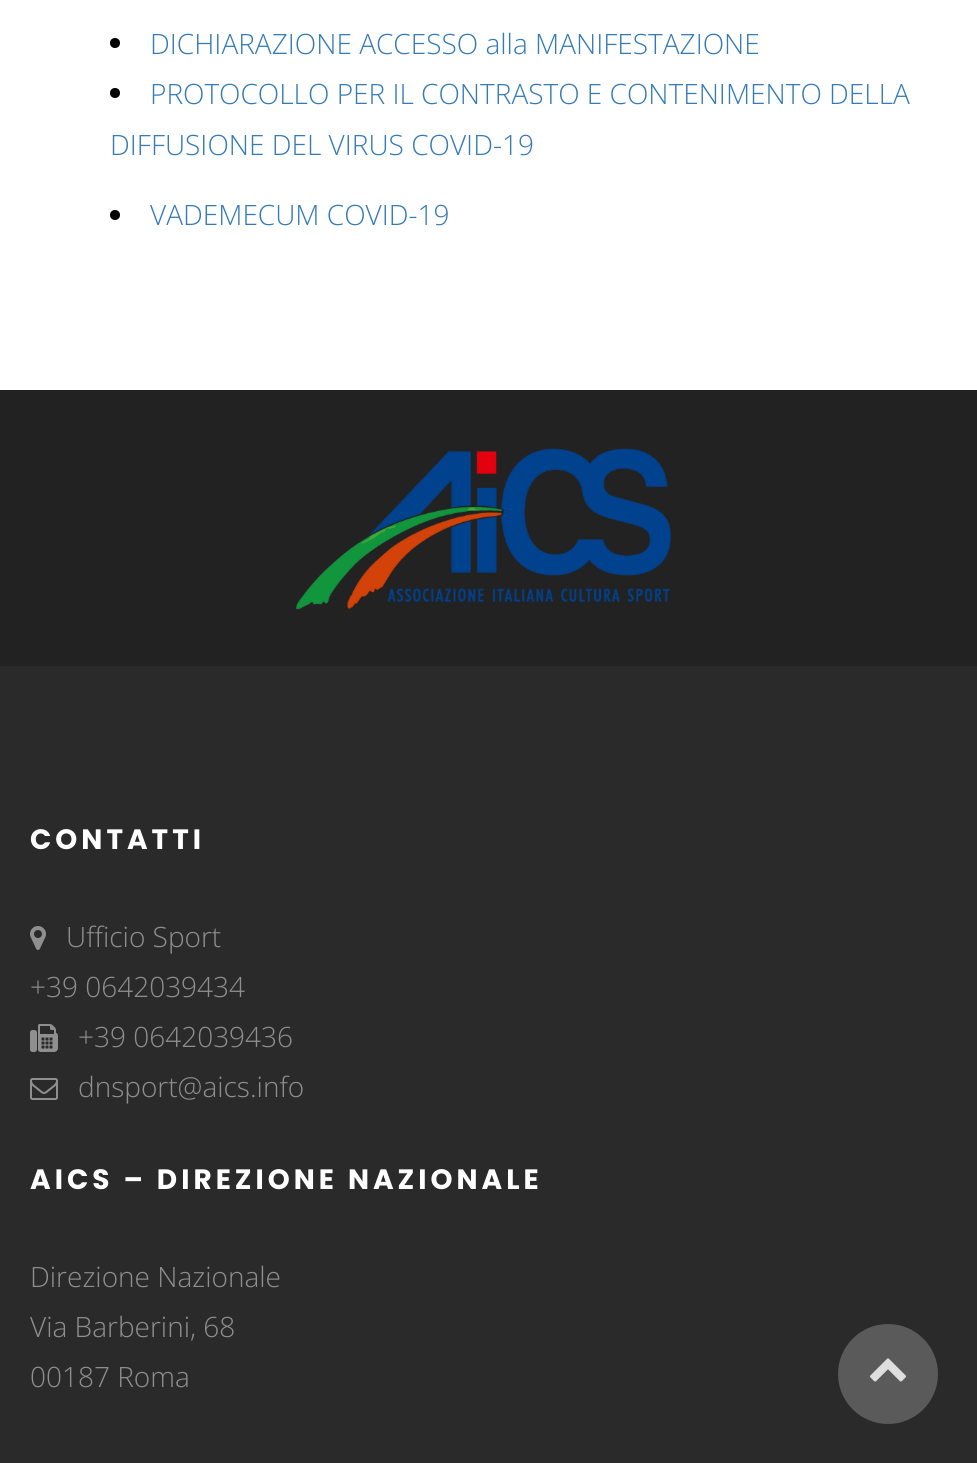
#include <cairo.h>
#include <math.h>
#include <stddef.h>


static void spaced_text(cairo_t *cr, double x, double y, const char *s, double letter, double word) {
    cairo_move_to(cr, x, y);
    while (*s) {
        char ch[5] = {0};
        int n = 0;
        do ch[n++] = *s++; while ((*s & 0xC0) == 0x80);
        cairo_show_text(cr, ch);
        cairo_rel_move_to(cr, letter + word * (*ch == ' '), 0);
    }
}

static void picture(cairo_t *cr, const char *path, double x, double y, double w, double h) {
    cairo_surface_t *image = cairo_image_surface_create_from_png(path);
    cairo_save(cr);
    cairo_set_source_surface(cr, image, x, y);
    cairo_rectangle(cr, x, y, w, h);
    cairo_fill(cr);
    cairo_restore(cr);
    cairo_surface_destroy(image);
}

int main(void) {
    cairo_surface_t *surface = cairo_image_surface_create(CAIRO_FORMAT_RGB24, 977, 1463);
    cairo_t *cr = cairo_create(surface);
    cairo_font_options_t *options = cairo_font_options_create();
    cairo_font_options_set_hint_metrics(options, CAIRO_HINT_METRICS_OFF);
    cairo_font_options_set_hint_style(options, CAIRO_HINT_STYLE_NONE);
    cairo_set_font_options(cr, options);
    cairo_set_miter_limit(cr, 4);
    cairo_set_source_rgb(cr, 1, 1, 1);
    cairo_paint(cr);
    cairo_set_source_rgb(cr, 0, 0, 0);
    cairo_arc(cr, 115, 43, 5, 0, 2 * M_PI);
    cairo_fill(cr);
    cairo_select_font_face(cr, "Open Sans Light", CAIRO_FONT_SLANT_NORMAL, CAIRO_FONT_WEIGHT_NORMAL);
    cairo_set_font_size(cr, 28);
    cairo_set_source_rgb(cr, 0.2, 0.478, 0.718);
    cairo_move_to(cr, 150, 54);
    cairo_show_text(cr, "DICHIARAZIONE ACCESSO alla MANIFESTAZIONE");
    cairo_set_source_rgb(cr, 0, 0, 0);
    cairo_new_path(cr);
    cairo_arc(cr, 115, 93, 5, 0, 2 * M_PI);
    cairo_fill(cr);
    cairo_set_source_rgb(cr, 0.2, 0.478, 0.718);
    cairo_move_to(cr, 150, 104);
    cairo_show_text(cr, "PROTOCOLLO PER IL CONTRASTO E CONTENIMENTO DELLA");
    cairo_move_to(cr, 110, 155);
    cairo_show_text(cr, "DIFFUSIONE DEL VIRUS COVID-19");
    cairo_set_source_rgb(cr, 0, 0, 0);
    cairo_new_path(cr);
    cairo_arc(cr, 115, 215, 5, 0, 2 * M_PI);
    cairo_fill(cr);
    cairo_set_source_rgb(cr, 0.2, 0.478, 0.718);
    cairo_move_to(cr, 150, 225);
    cairo_show_text(cr, "VADEMECUM COVID-19");
    cairo_set_source_rgb(cr, 0.133, 0.133, 0.133);
    cairo_rectangle(cr, 0, 390, 977, 276);
    cairo_fill(cr);
    picture(cr, "img1.png", 295, 448, 376, 162);
    cairo_set_source_rgb(cr, 0.165, 0.165, 0.165);
    cairo_rectangle(cr, 0, 666, 977, 797);
    cairo_fill(cr);
    cairo_select_font_face(cr, "Poppins", CAIRO_FONT_SLANT_NORMAL, CAIRO_FONT_WEIGHT_BOLD);
    cairo_set_source_rgb(cr, 1, 1, 1);
    spaced_text(cr, 30, 849, "CONTATTI", 4, 0);
    picture(cr, "img2.png", 30, 926, 16, 24);
    cairo_select_font_face(cr, "Open Sans Light", CAIRO_FONT_SLANT_NORMAL, CAIRO_FONT_WEIGHT_NORMAL);
    cairo_set_source_rgb(cr, 0.561, 0.561, 0.561);
    cairo_move_to(cr, 66, 947);
    cairo_show_text(cr, "Ufficio Sport");
    cairo_move_to(cr, 30, 997);
    cairo_show_text(cr, "+39 0642039434");
    picture(cr, "img3.png", 30, 1024, 28, 28);
    cairo_move_to(cr, 78, 1047);
    cairo_show_text(cr, "+39 0642039436");
    picture(cr, "img4.png", 30, 1078, 28, 22);
    cairo_move_to(cr, 78, 1097);
    cairo_show_text(cr, "dnsport@aics.info");
    cairo_select_font_face(cr, "Poppins", CAIRO_FONT_SLANT_NORMAL, CAIRO_FONT_WEIGHT_BOLD);
    cairo_set_source_rgb(cr, 1, 1, 1);
    spaced_text(cr, 30, 1189, "AICS – DIREZIONE NAZIONALE", 4, 0);
    cairo_select_font_face(cr, "Open Sans Light", CAIRO_FONT_SLANT_NORMAL, CAIRO_FONT_WEIGHT_NORMAL);
    cairo_set_source_rgb(cr, 0.561, 0.561, 0.561);
    cairo_move_to(cr, 30, 1287);
    cairo_show_text(cr, "Direzione Nazionale");
    cairo_move_to(cr, 30, 1337);
    cairo_show_text(cr, "Via Barberini, 68");
    cairo_move_to(cr, 30, 1387);
    cairo_show_text(cr, "00187 Roma");
    cairo_set_source_rgb(cr, 0.353, 0.353, 0.353);
    cairo_new_path(cr);
    cairo_arc(cr, 888, 1374, 50, 0, 2 * M_PI);
    cairo_fill(cr);
    picture(cr, "img5.png", 870, 1358, 36, 24);
    cairo_surface_write_to_png(surface, "page.png");
    cairo_font_options_destroy(options);
    cairo_destroy(cr);
    cairo_surface_destroy(surface);
    return 0;
}
